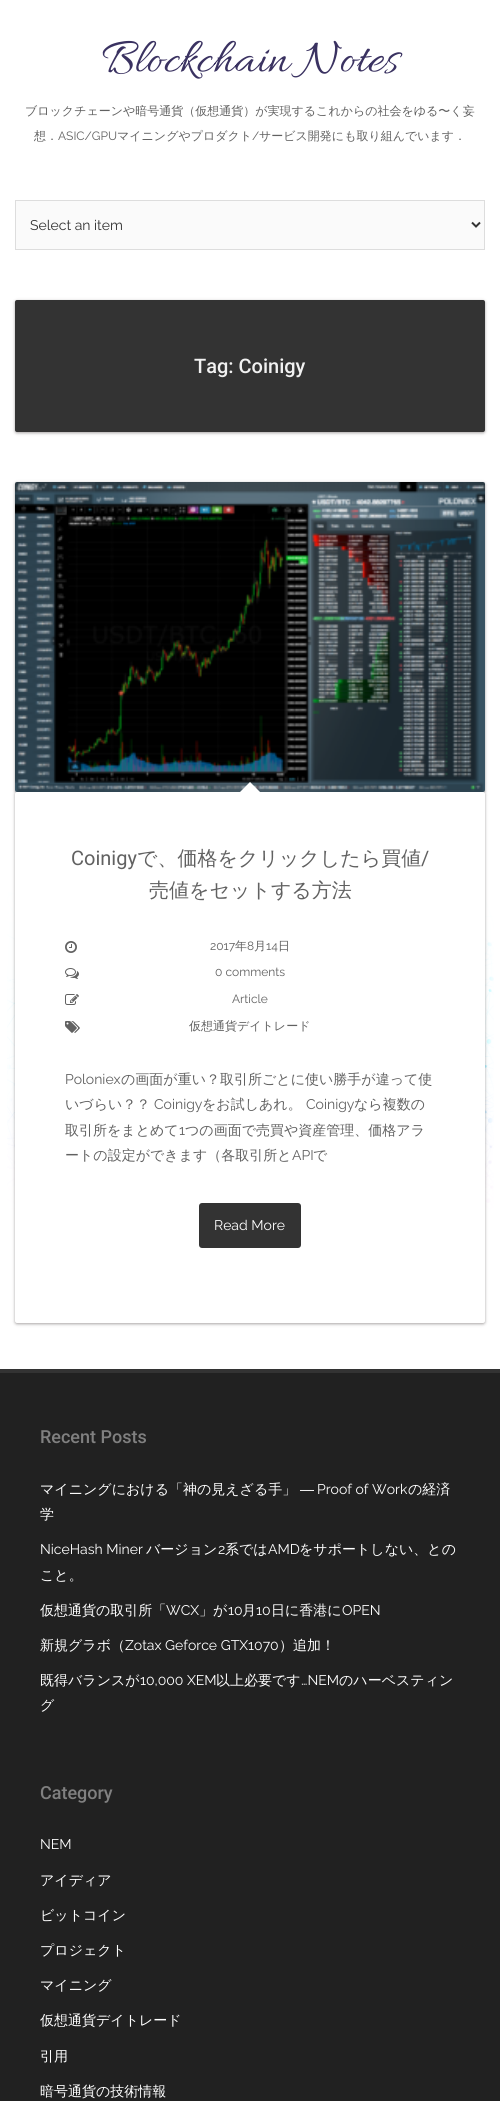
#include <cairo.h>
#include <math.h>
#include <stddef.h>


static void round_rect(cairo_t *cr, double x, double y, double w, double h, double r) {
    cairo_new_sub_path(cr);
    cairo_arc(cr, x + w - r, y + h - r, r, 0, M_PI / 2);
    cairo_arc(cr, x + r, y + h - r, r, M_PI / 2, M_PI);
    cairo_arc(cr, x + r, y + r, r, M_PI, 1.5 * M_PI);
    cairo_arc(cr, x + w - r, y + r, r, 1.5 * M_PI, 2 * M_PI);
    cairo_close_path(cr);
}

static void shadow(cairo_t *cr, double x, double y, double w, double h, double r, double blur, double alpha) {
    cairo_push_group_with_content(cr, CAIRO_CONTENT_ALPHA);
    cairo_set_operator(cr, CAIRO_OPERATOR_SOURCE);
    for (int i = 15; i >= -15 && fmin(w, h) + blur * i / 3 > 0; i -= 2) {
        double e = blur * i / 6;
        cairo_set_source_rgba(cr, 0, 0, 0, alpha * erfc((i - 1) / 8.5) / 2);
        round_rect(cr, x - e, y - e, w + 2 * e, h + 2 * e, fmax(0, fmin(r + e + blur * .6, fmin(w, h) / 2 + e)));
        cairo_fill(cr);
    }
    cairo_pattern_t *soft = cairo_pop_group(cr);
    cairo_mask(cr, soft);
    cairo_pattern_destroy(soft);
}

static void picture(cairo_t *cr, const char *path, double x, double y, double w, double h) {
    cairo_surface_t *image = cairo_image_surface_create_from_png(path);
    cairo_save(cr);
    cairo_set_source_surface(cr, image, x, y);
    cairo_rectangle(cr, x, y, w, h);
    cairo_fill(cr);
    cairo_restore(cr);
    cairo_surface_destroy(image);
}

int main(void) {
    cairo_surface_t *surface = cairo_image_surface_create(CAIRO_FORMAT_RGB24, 500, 2101);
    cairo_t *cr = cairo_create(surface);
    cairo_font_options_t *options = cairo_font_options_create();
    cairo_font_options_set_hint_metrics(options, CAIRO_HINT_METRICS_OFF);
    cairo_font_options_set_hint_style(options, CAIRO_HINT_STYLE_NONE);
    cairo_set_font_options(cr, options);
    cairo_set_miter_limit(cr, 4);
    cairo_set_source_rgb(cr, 1, 1, 1);
    cairo_paint(cr);
    picture(cr, "img1.png", 7, 892, 487, 319);
    cairo_select_font_face(cr, "Allura", CAIRO_FONT_SLANT_NORMAL, CAIRO_FONT_WEIGHT_NORMAL);
    cairo_set_font_size(cr, 50);
    cairo_set_source_rgb(cr, 0.227, 0.196, 0.38);
    cairo_move_to(cr, 102, 71);
    cairo_show_text(cr, "Blockchain Notes");
    cairo_select_font_face(cr, "WenQuanYi Zen Hei Medium", CAIRO_FONT_SLANT_NORMAL, CAIRO_FONT_WEIGHT_NORMAL);
    cairo_set_font_size(cr, 12);
    cairo_set_source_rgb(cr, 0.38, 0.38, 0.38);
    cairo_move_to(cr, 25, 115);
    cairo_show_text(cr, "ブロックチェーンや暗号通貨（仮想通貨）が実現するこれからの社会をゆる〜く妄");
    cairo_move_to(cr, 34, 140);
    cairo_show_text(cr, "想．");
    cairo_select_font_face(cr, "Raleway", CAIRO_FONT_SLANT_NORMAL, CAIRO_FONT_WEIGHT_NORMAL);
    cairo_move_to(cr, 58, 140);
    cairo_show_text(cr, "ASIC/GPU");
    cairo_select_font_face(cr, "WenQuanYi Zen Hei Medium", CAIRO_FONT_SLANT_NORMAL, CAIRO_FONT_WEIGHT_NORMAL);
    cairo_move_to(cr, 117, 140);
    cairo_show_text(cr, "マイニングやプロダクト");
    cairo_select_font_face(cr, "Raleway", CAIRO_FONT_SLANT_NORMAL, CAIRO_FONT_WEIGHT_NORMAL);
    cairo_move_to(cr, 252, 140);
    cairo_show_text(cr, "/");
    cairo_select_font_face(cr, "WenQuanYi Zen Hei Medium", CAIRO_FONT_SLANT_NORMAL, CAIRO_FONT_WEIGHT_NORMAL);
    cairo_move_to(cr, 259, 140);
    cairo_show_text(cr, "サービス開発にも取り組んでいます．");
    cairo_set_source_rgb(cr, 0.98, 0.98, 0.98);
    cairo_rectangle(cr, 15.5, 200.5, 469, 49);
    cairo_fill_preserve(cr);
    cairo_set_source_rgb(cr, 0.867, 0.867, 0.867);
    cairo_set_line_width(cr, 1);
    cairo_stroke(cr);
    cairo_new_path(cr);
    cairo_move_to(cr, 472, 222.5);
    cairo_line_to(cr, 476, 226.5);
    cairo_line_to(cr, 480, 222.5);
    cairo_set_source_rgb(cr, 0.2, 0.2, 0.2);
    cairo_set_line_width(cr, 2);
    cairo_stroke(cr);
    cairo_select_font_face(cr, "Raleway", CAIRO_FONT_SLANT_NORMAL, CAIRO_FONT_WEIGHT_NORMAL);
    cairo_set_font_size(cr, 14);
    cairo_move_to(cr, 30, 230);
    cairo_show_text(cr, "Select an item");
    cairo_set_source_rgb(cr, 0.133, 0.098, 0.098);
    shadow(cr, 15, 301, 470, 132, 2, 1.5, 0.4);
    cairo_set_source_rgb(cr, 0.2, 0.2, 0.2);
    round_rect(cr, 15, 300, 470, 132, 2);
    cairo_fill(cr);
    cairo_select_font_face(cr, "Roboto Medium", CAIRO_FONT_SLANT_NORMAL, CAIRO_FONT_WEIGHT_NORMAL);
    cairo_set_font_size(cr, 20);
    cairo_set_source_rgb(cr, 0.945, 0.945, 0.945);
    cairo_move_to(cr, 194, 373);
    cairo_show_text(cr, "Tag: Coinigy");
    cairo_set_source_rgb(cr, 0.133, 0.098, 0.098);
    shadow(cr, 15, 483, 470, 310, 2, 1.5, 0.4);
    picture(cr, "img2.png", 15, 482, 470, 310);
    shadow(cr, 15, 793, 470, 531, 2, 1.5, 0.4);
    cairo_set_source_rgb(cr, 1, 1, 1);
    cairo_new_path(cr);
    cairo_move_to(cr, 260, 792);
    cairo_line_to(cr, 240, 792);
    cairo_line_to(cr, 250, 782);
    cairo_close_path(cr);
    cairo_fill(cr);
    round_rect(cr, 15, 792, 470, 531, 2);
    cairo_fill(cr);
    cairo_select_font_face(cr, "Roboto", CAIRO_FONT_SLANT_NORMAL, CAIRO_FONT_WEIGHT_NORMAL);
    cairo_set_source_rgb(cr, 0.38, 0.38, 0.38);
    cairo_move_to(cr, 71, 865);
    cairo_show_text(cr, "Coinigy");
    cairo_select_font_face(cr, "WenQuanYi Zen Hei Medium", CAIRO_FONT_SLANT_NORMAL, CAIRO_FONT_WEIGHT_NORMAL);
    cairo_move_to(cr, 137, 865);
    cairo_show_text(cr, "で、価格をクリックしたら買値");
    cairo_select_font_face(cr, "Roboto", CAIRO_FONT_SLANT_NORMAL, CAIRO_FONT_WEIGHT_NORMAL);
    cairo_move_to(cr, 421, 865);
    cairo_show_text(cr, "/");
    cairo_select_font_face(cr, "WenQuanYi Zen Hei Medium", CAIRO_FONT_SLANT_NORMAL, CAIRO_FONT_WEIGHT_NORMAL);
    cairo_move_to(cr, 149, 897);
    cairo_show_text(cr, "売値をセットする方法");
    picture(cr, "img3.png", 65, 941, 12, 12);
    cairo_select_font_face(cr, "Raleway", CAIRO_FONT_SLANT_NORMAL, CAIRO_FONT_WEIGHT_NORMAL);
    cairo_set_font_size(cr, 12);
    cairo_move_to(cr, 210, 950);
    cairo_show_text(cr, "2017");
    cairo_select_font_face(cr, "WenQuanYi Zen Hei Medium", CAIRO_FONT_SLANT_NORMAL, CAIRO_FONT_WEIGHT_NORMAL);
    cairo_move_to(cr, 235, 950);
    cairo_show_text(cr, "年");
    cairo_select_font_face(cr, "Raleway", CAIRO_FONT_SLANT_NORMAL, CAIRO_FONT_WEIGHT_NORMAL);
    cairo_move_to(cr, 247, 950);
    cairo_show_text(cr, "8");
    cairo_select_font_face(cr, "WenQuanYi Zen Hei Medium", CAIRO_FONT_SLANT_NORMAL, CAIRO_FONT_WEIGHT_NORMAL);
    cairo_move_to(cr, 254, 950);
    cairo_show_text(cr, "月");
    cairo_select_font_face(cr, "Raleway", CAIRO_FONT_SLANT_NORMAL, CAIRO_FONT_WEIGHT_NORMAL);
    cairo_move_to(cr, 266, 950);
    cairo_show_text(cr, "14");
    cairo_select_font_face(cr, "WenQuanYi Zen Hei Medium", CAIRO_FONT_SLANT_NORMAL, CAIRO_FONT_WEIGHT_NORMAL);
    cairo_move_to(cr, 278, 950);
    cairo_show_text(cr, "日");
    picture(cr, "img4.png", 65, 968, 14, 11);
    cairo_select_font_face(cr, "Raleway", CAIRO_FONT_SLANT_NORMAL, CAIRO_FONT_WEIGHT_NORMAL);
    cairo_move_to(cr, 215, 976);
    cairo_show_text(cr, "0 comments");
    picture(cr, "img5.png", 65, 994, 14, 11);
    cairo_move_to(cr, 232, 1003);
    cairo_show_text(cr, "Article");
    picture(cr, "img6.png", 65, 1021, 15, 12);
    cairo_select_font_face(cr, "WenQuanYi Zen Hei Medium", CAIRO_FONT_SLANT_NORMAL, CAIRO_FONT_WEIGHT_NORMAL);
    cairo_move_to(cr, 189, 1030);
    cairo_show_text(cr, "仮想通貨デイトレード");
    cairo_select_font_face(cr, "Raleway", CAIRO_FONT_SLANT_NORMAL, CAIRO_FONT_WEIGHT_NORMAL);
    cairo_set_font_size(cr, 14);
    cairo_move_to(cr, 65, 1084);
    cairo_show_text(cr, "Poloniex");
    cairo_select_font_face(cr, "WenQuanYi Zen Hei Medium", CAIRO_FONT_SLANT_NORMAL, CAIRO_FONT_WEIGHT_NORMAL);
    cairo_move_to(cr, 121, 1084);
    cairo_show_text(cr, "の画面が重い？取引所ごとに使い勝手が違って使");
    cairo_move_to(cr, 65, 1109);
    cairo_show_text(cr, "いづらい？？");
    cairo_select_font_face(cr, "Raleway", CAIRO_FONT_SLANT_NORMAL, CAIRO_FONT_WEIGHT_NORMAL);
    cairo_move_to(cr, 154, 1109);
    cairo_show_text(cr, "Coinigy");
    cairo_select_font_face(cr, "WenQuanYi Zen Hei Medium", CAIRO_FONT_SLANT_NORMAL, CAIRO_FONT_WEIGHT_NORMAL);
    cairo_move_to(cr, 202, 1109);
    cairo_show_text(cr, "をお試しあれ。");
    cairo_select_font_face(cr, "Raleway", CAIRO_FONT_SLANT_NORMAL, CAIRO_FONT_WEIGHT_NORMAL);
    cairo_move_to(cr, 306, 1109);
    cairo_show_text(cr, "Coinigy");
    cairo_select_font_face(cr, "WenQuanYi Zen Hei Medium", CAIRO_FONT_SLANT_NORMAL, CAIRO_FONT_WEIGHT_NORMAL);
    cairo_move_to(cr, 354, 1109);
    cairo_show_text(cr, "なら複数の");
    cairo_move_to(cr, 65, 1135);
    cairo_show_text(cr, "取引所をまとめて");
    cairo_select_font_face(cr, "Raleway", CAIRO_FONT_SLANT_NORMAL, CAIRO_FONT_WEIGHT_NORMAL);
    cairo_move_to(cr, 179, 1135);
    cairo_show_text(cr, "1");
    cairo_select_font_face(cr, "WenQuanYi Zen Hei Medium", CAIRO_FONT_SLANT_NORMAL, CAIRO_FONT_WEIGHT_NORMAL);
    cairo_move_to(cr, 185, 1135);
    cairo_show_text(cr, "つの画面で売買や資産管理、価格アラ");
    cairo_move_to(cr, 65, 1160);
    cairo_show_text(cr, "ートの設定ができます（各取引所と");
    cairo_select_font_face(cr, "Raleway", CAIRO_FONT_SLANT_NORMAL, CAIRO_FONT_WEIGHT_NORMAL);
    cairo_move_to(cr, 292, 1160);
    cairo_show_text(cr, "API");
    cairo_select_font_face(cr, "WenQuanYi Zen Hei Medium", CAIRO_FONT_SLANT_NORMAL, CAIRO_FONT_WEIGHT_NORMAL);
    cairo_move_to(cr, 313, 1160);
    cairo_show_text(cr, "で");
    cairo_set_source_rgb(cr, 0.2, 0.2, 0.2);
    round_rect(cr, 199, 1203, 102, 45, 3);
    cairo_fill(cr);
    cairo_select_font_face(cr, "Raleway", CAIRO_FONT_SLANT_NORMAL, CAIRO_FONT_WEIGHT_NORMAL);
    cairo_set_source_rgb(cr, 1, 1, 1);
    cairo_move_to(cr, 214, 1230);
    cairo_show_text(cr, "Read More");
    cairo_set_source_rgb(cr, 0.129, 0.129, 0.129);
    cairo_rectangle(cr, 0, 1373, 500, 728);
    cairo_fill(cr);
    cairo_set_source_rgb(cr, 0.2, 0.2, 0.2);
    cairo_rectangle(cr, 0, 1369, 500, 4);
    cairo_fill(cr);
    cairo_select_font_face(cr, "Roboto Medium", CAIRO_FONT_SLANT_NORMAL, CAIRO_FONT_WEIGHT_NORMAL);
    cairo_set_font_size(cr, 18);
    cairo_set_source_rgb(cr, 0.502, 0.502, 0.502);
    cairo_move_to(cr, 40, 1443);
    cairo_show_text(cr, "Recent Posts");
    cairo_select_font_face(cr, "WenQuanYi Zen Hei Medium", CAIRO_FONT_SLANT_NORMAL, CAIRO_FONT_WEIGHT_NORMAL);
    cairo_set_font_size(cr, 14);
    cairo_set_source_rgb(cr, 1, 1, 1);
    cairo_move_to(cr, 40, 1494);
    cairo_show_text(cr, "マイニングにおける「神の見えざる手」");
    cairo_select_font_face(cr, "Liberation Sans", CAIRO_FONT_SLANT_NORMAL, CAIRO_FONT_WEIGHT_NORMAL);
    cairo_move_to(cr, 300, 1494);
    cairo_show_text(cr, "―");
    cairo_select_font_face(cr, "Raleway", CAIRO_FONT_SLANT_NORMAL, CAIRO_FONT_WEIGHT_NORMAL);
    cairo_move_to(cr, 317, 1494);
    cairo_show_text(cr, "Proof of Work");
    cairo_select_font_face(cr, "WenQuanYi Zen Hei Medium", CAIRO_FONT_SLANT_NORMAL, CAIRO_FONT_WEIGHT_NORMAL);
    cairo_move_to(cr, 408, 1494);
    cairo_show_text(cr, "の経済");
    cairo_move_to(cr, 40, 1519);
    cairo_show_text(cr, "学");
    cairo_select_font_face(cr, "Raleway", CAIRO_FONT_SLANT_NORMAL, CAIRO_FONT_WEIGHT_NORMAL);
    cairo_move_to(cr, 40, 1554);
    cairo_show_text(cr, "NiceHash Miner");
    cairo_select_font_face(cr, "WenQuanYi Zen Hei Medium", CAIRO_FONT_SLANT_NORMAL, CAIRO_FONT_WEIGHT_NORMAL);
    cairo_move_to(cr, 146, 1554);
    cairo_show_text(cr, "バージョン");
    cairo_select_font_face(cr, "Raleway", CAIRO_FONT_SLANT_NORMAL, CAIRO_FONT_WEIGHT_NORMAL);
    cairo_move_to(cr, 218, 1554);
    cairo_show_text(cr, "2");
    cairo_select_font_face(cr, "WenQuanYi Zen Hei Medium", CAIRO_FONT_SLANT_NORMAL, CAIRO_FONT_WEIGHT_NORMAL);
    cairo_move_to(cr, 225, 1554);
    cairo_show_text(cr, "系では");
    cairo_select_font_face(cr, "Raleway", CAIRO_FONT_SLANT_NORMAL, CAIRO_FONT_WEIGHT_NORMAL);
    cairo_move_to(cr, 268, 1554);
    cairo_show_text(cr, "AMD");
    cairo_select_font_face(cr, "WenQuanYi Zen Hei Medium", CAIRO_FONT_SLANT_NORMAL, CAIRO_FONT_WEIGHT_NORMAL);
    cairo_move_to(cr, 299, 1554);
    cairo_show_text(cr, "をサポートしない、との");
    cairo_move_to(cr, 40, 1580);
    cairo_show_text(cr, "こと。");
    cairo_move_to(cr, 40, 1615);
    cairo_show_text(cr, "仮想通貨の取引所「");
    cairo_select_font_face(cr, "Raleway", CAIRO_FONT_SLANT_NORMAL, CAIRO_FONT_WEIGHT_NORMAL);
    cairo_move_to(cr, 166, 1615);
    cairo_show_text(cr, "WCX");
    cairo_select_font_face(cr, "WenQuanYi Zen Hei Medium", CAIRO_FONT_SLANT_NORMAL, CAIRO_FONT_WEIGHT_NORMAL);
    cairo_move_to(cr, 199, 1615);
    cairo_show_text(cr, "」が");
    cairo_select_font_face(cr, "Raleway", CAIRO_FONT_SLANT_NORMAL, CAIRO_FONT_WEIGHT_NORMAL);
    cairo_move_to(cr, 228, 1615);
    cairo_show_text(cr, "10");
    cairo_select_font_face(cr, "WenQuanYi Zen Hei Medium", CAIRO_FONT_SLANT_NORMAL, CAIRO_FONT_WEIGHT_NORMAL);
    cairo_move_to(cr, 242, 1615);
    cairo_show_text(cr, "月");
    cairo_select_font_face(cr, "Raleway", CAIRO_FONT_SLANT_NORMAL, CAIRO_FONT_WEIGHT_NORMAL);
    cairo_move_to(cr, 256, 1615);
    cairo_show_text(cr, "10");
    cairo_select_font_face(cr, "WenQuanYi Zen Hei Medium", CAIRO_FONT_SLANT_NORMAL, CAIRO_FONT_WEIGHT_NORMAL);
    cairo_move_to(cr, 271, 1615);
    cairo_show_text(cr, "日に香港に");
    cairo_select_font_face(cr, "Raleway", CAIRO_FONT_SLANT_NORMAL, CAIRO_FONT_WEIGHT_NORMAL);
    cairo_move_to(cr, 342, 1615);
    cairo_show_text(cr, "OPEN");
    cairo_select_font_face(cr, "WenQuanYi Zen Hei Medium", CAIRO_FONT_SLANT_NORMAL, CAIRO_FONT_WEIGHT_NORMAL);
    cairo_move_to(cr, 40, 1650);
    cairo_show_text(cr, "新規グラボ（");
    cairo_select_font_face(cr, "Raleway", CAIRO_FONT_SLANT_NORMAL, CAIRO_FONT_WEIGHT_NORMAL);
    cairo_move_to(cr, 125, 1650);
    cairo_show_text(cr, "Zotax Geforce GTX1070");
    cairo_select_font_face(cr, "WenQuanYi Zen Hei Medium", CAIRO_FONT_SLANT_NORMAL, CAIRO_FONT_WEIGHT_NORMAL);
    cairo_move_to(cr, 279, 1650);
    cairo_show_text(cr, "）追加！");
    cairo_move_to(cr, 40, 1685);
    cairo_show_text(cr, "既得バランスが");
    cairo_select_font_face(cr, "Raleway", CAIRO_FONT_SLANT_NORMAL, CAIRO_FONT_WEIGHT_NORMAL);
    cairo_move_to(cr, 140, 1685);
    cairo_show_text(cr, "10,000 XEM");
    cairo_select_font_face(cr, "WenQuanYi Zen Hei Medium", CAIRO_FONT_SLANT_NORMAL, CAIRO_FONT_WEIGHT_NORMAL);
    cairo_move_to(cr, 216, 1685);
    cairo_show_text(cr, "以上必要です");
    cairo_select_font_face(cr, "Raleway", CAIRO_FONT_SLANT_NORMAL, CAIRO_FONT_WEIGHT_NORMAL);
    cairo_move_to(cr, 301, 1685);
    cairo_show_text(cr, "…NEM");
    cairo_select_font_face(cr, "WenQuanYi Zen Hei Medium", CAIRO_FONT_SLANT_NORMAL, CAIRO_FONT_WEIGHT_NORMAL);
    cairo_move_to(cr, 339, 1685);
    cairo_show_text(cr, "のハーベスティン");
    cairo_move_to(cr, 40, 1710);
    cairo_show_text(cr, "グ");
    cairo_select_font_face(cr, "Roboto Medium", CAIRO_FONT_SLANT_NORMAL, CAIRO_FONT_WEIGHT_NORMAL);
    cairo_set_font_size(cr, 18);
    cairo_set_source_rgb(cr, 0.502, 0.502, 0.502);
    cairo_move_to(cr, 40, 1799);
    cairo_show_text(cr, "Category");
    cairo_select_font_face(cr, "Raleway", CAIRO_FONT_SLANT_NORMAL, CAIRO_FONT_WEIGHT_NORMAL);
    cairo_set_font_size(cr, 14);
    cairo_set_source_rgb(cr, 1, 1, 1);
    cairo_move_to(cr, 40, 1849);
    cairo_show_text(cr, "NEM");
    cairo_select_font_face(cr, "WenQuanYi Zen Hei Medium", CAIRO_FONT_SLANT_NORMAL, CAIRO_FONT_WEIGHT_NORMAL);
    cairo_move_to(cr, 40, 1885);
    cairo_show_text(cr, "アイディア");
    cairo_move_to(cr, 40, 1920);
    cairo_show_text(cr, "ビットコイン");
    cairo_move_to(cr, 40, 1955);
    cairo_show_text(cr, "プロジェクト");
    cairo_move_to(cr, 40, 1990);
    cairo_show_text(cr, "マイニング");
    cairo_move_to(cr, 40, 2025);
    cairo_show_text(cr, "仮想通貨デイトレード");
    cairo_move_to(cr, 40, 2061);
    cairo_show_text(cr, "引用");
    cairo_move_to(cr, 40, 2096);
    cairo_show_text(cr, "暗号通貨の技術情報");
    cairo_surface_write_to_png(surface, "page.png");
    cairo_font_options_destroy(options);
    cairo_destroy(cr);
    cairo_surface_destroy(surface);
    return 0;
}
